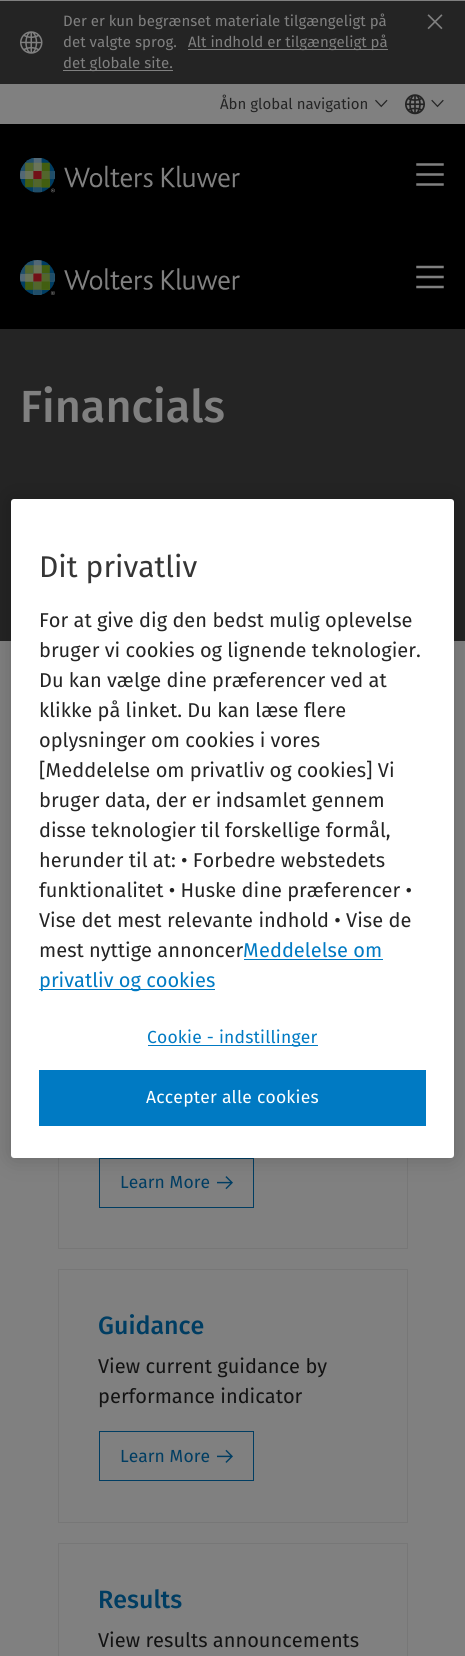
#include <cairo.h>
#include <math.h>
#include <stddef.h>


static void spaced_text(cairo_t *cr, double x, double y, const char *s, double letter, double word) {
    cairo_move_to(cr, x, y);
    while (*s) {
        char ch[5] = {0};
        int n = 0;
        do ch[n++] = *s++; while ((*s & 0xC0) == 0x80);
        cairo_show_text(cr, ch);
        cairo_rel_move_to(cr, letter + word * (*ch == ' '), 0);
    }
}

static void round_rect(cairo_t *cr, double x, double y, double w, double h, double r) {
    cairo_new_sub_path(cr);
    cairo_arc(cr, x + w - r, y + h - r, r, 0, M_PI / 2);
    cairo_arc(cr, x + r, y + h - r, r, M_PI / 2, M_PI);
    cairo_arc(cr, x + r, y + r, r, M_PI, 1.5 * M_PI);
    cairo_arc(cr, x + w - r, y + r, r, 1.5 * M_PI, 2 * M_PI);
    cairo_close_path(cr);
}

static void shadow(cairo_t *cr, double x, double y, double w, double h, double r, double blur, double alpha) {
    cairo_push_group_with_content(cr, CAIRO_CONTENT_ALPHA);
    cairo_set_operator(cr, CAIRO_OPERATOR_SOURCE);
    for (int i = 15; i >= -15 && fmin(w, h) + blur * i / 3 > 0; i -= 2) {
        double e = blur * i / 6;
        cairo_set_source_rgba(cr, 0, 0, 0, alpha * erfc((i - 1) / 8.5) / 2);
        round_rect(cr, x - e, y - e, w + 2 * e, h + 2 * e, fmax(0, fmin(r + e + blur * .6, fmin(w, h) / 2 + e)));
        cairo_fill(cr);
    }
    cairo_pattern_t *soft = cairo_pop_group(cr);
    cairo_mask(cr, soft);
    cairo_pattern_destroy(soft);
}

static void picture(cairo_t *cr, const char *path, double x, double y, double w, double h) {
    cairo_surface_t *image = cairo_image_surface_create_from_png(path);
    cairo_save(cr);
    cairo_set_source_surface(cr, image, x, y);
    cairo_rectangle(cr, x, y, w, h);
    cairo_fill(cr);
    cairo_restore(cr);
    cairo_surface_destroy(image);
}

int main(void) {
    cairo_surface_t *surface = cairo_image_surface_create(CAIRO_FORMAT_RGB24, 465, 1656);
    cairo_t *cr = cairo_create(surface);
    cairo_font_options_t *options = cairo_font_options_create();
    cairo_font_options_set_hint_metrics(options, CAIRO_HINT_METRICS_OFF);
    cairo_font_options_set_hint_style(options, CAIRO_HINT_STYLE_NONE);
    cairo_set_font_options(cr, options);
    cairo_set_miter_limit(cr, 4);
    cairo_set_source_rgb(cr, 0.502, 0.502, 0.502);
    cairo_paint(cr);
    cairo_set_source_rgb(cr, 0.141, 0.141, 0.141);
    cairo_rectangle(cr, 0, 1, 465, 83);
    cairo_fill(cr);
    cairo_select_font_face(cr, "Fira Sans", CAIRO_FONT_SLANT_NORMAL, CAIRO_FONT_WEIGHT_NORMAL);
    cairo_set_font_size(cr, 15);
    cairo_set_source_rgb(cr, 0.502, 0.502, 0.502);
    cairo_move_to(cr, 63, 26);
    cairo_show_text(cr, "Der er kun begrænset materiale tilgængeligt på");
    cairo_move_to(cr, 63, 47);
    cairo_show_text(cr, "det valgte sprog.");
    cairo_rectangle(cr, 188, 49, 200, 1);
    cairo_fill(cr);
    cairo_move_to(cr, 188, 47);
    cairo_show_text(cr, "Alt indhold er tilgængeligt på");
    cairo_rectangle(cr, 63, 70, 110, 1);
    cairo_fill(cr);
    cairo_move_to(cr, 63, 68);
    cairo_show_text(cr, "det globale site.");
    picture(cr, "img1.png", 427, 14, 16, 16);
    picture(cr, "img2.png", 20, 31, 23, 23);
    cairo_set_source_rgb(cr, 0.141, 0.141, 0.141);
    cairo_move_to(cr, 220, 109);
    cairo_show_text(cr, "Åbn global navigation");
    picture(cr, "img3.png", 375, 99, 13, 9);
    picture(cr, "img4.png", 405, 94, 20, 21);
    picture(cr, "img5.png", 431, 99, 13, 9);
    cairo_set_source_rgb(cr, 0, 0, 0);
    cairo_rectangle(cr, 0, 124, 465, 205);
    cairo_fill(cr);
    picture(cr, "img6.png", 20, 158, 220, 35);
    picture(cr, "img7.png", 416, 163, 28, 23);
    picture(cr, "img8.png", 20, 260, 220, 35);
    picture(cr, "img9.png", 416, 265, 28, 24);
    cairo_set_source_rgb(cr, 0.141, 0.141, 0.141);
    cairo_rectangle(cr, 0, 329, 465, 312);
    cairo_fill(cr);
    cairo_select_font_face(cr, "Fira Sans Medium", CAIRO_FONT_SLANT_NORMAL, CAIRO_FONT_WEIGHT_NORMAL);
    cairo_set_font_size(cr, 45);
    cairo_set_source_rgb(cr, 0.502, 0.502, 0.502);
    cairo_move_to(cr, 20, 422);
    cairo_show_text(cr, "Financials");
    cairo_rectangle(cr, 58.5, 995.5, 349, 253);
    cairo_set_source_rgb(cr, 0.467, 0.467, 0.467);
    cairo_set_line_width(cr, 1);
    cairo_stroke(cr);
    cairo_rectangle(cr, 99.5, 1158.5, 154, 49);
    cairo_set_source_rgb(cr, 0, 0.239, 0.384);
    cairo_stroke(cr);
    cairo_select_font_face(cr, "Fira Sans", CAIRO_FONT_SLANT_NORMAL, CAIRO_FONT_WEIGHT_NORMAL);
    cairo_set_font_size(cr, 17.5);
    cairo_move_to(cr, 120, 1188);
    cairo_show_text(cr, "Learn More");
    picture(cr, "img10.png", 217, 1176, 16, 14);
    cairo_rectangle(cr, 58.5, 1269.5, 349, 253);
    cairo_set_source_rgb(cr, 0.467, 0.467, 0.467);
    cairo_stroke(cr);
    cairo_select_font_face(cr, "Fira Sans Medium", CAIRO_FONT_SLANT_NORMAL, CAIRO_FONT_WEIGHT_NORMAL);
    cairo_set_font_size(cr, 25);
    cairo_set_source_rgb(cr, 0, 0.239, 0.384);
    cairo_move_to(cr, 98, 1334);
    cairo_show_text(cr, "Guidance");
    cairo_select_font_face(cr, "Fira Sans", CAIRO_FONT_SLANT_NORMAL, CAIRO_FONT_WEIGHT_NORMAL);
    cairo_set_font_size(cr, 20);
    cairo_set_source_rgb(cr, 0.071, 0.071, 0.071);
    cairo_move_to(cr, 98, 1373);
    cairo_show_text(cr, "View current guidance by");
    cairo_move_to(cr, 98, 1403);
    cairo_show_text(cr, "performance indicator");
    cairo_rectangle(cr, 99.5, 1431.5, 154, 49);
    cairo_set_source_rgb(cr, 0, 0.239, 0.384);
    cairo_stroke(cr);
    cairo_set_font_size(cr, 17.5);
    cairo_move_to(cr, 120, 1462);
    cairo_show_text(cr, "Learn More");
    picture(cr, "img11.png", 217, 1449, 16, 14);
    cairo_rectangle(cr, 58.5, 1543.5, 349, 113);
    cairo_set_source_rgb(cr, 0.467, 0.467, 0.467);
    cairo_stroke(cr);
    cairo_select_font_face(cr, "Fira Sans Medium", CAIRO_FONT_SLANT_NORMAL, CAIRO_FONT_WEIGHT_NORMAL);
    cairo_set_font_size(cr, 25);
    cairo_set_source_rgb(cr, 0, 0.239, 0.384);
    cairo_move_to(cr, 98, 1608);
    cairo_show_text(cr, "Results");
    cairo_select_font_face(cr, "Fira Sans", CAIRO_FONT_SLANT_NORMAL, CAIRO_FONT_WEIGHT_NORMAL);
    cairo_set_font_size(cr, 20);
    cairo_set_source_rgb(cr, 0.071, 0.071, 0.071);
    cairo_move_to(cr, 98, 1647);
    cairo_show_text(cr, "View results announcements");
    cairo_set_source_rgb(cr, 0, 0, 0);
    shadow(cr, 11, 499, 443, 659, 3, 11, 0.2);
    cairo_set_source_rgb(cr, 1, 1, 1);
    round_rect(cr, 11, 499, 443, 659, 3);
    cairo_fill(cr);
    cairo_set_font_size(cr, 30);
    cairo_set_source_rgb(cr, 0.208, 0.208, 0.208);
    cairo_move_to(cr, 39, 577);
    cairo_show_text(cr, "Dit privatliv");
    cairo_set_font_size(cr, 20);
    cairo_set_source_rgb(cr, 0.141, 0.141, 0.141);
    cairo_move_to(cr, 39, 627);
    cairo_show_text(cr, "For at give dig den bedst mulig oplevelse");
    cairo_move_to(cr, 39, 657);
    cairo_show_text(cr, "bruger vi cookies og lignende teknologier.");
    cairo_move_to(cr, 39, 687);
    cairo_show_text(cr, "Du kan vælge dine præferencer ved at");
    cairo_move_to(cr, 39, 717);
    cairo_show_text(cr, "klikke på linket. Du kan læse flere");
    cairo_move_to(cr, 39, 747);
    cairo_show_text(cr, "oplysninger om cookies i vores");
    cairo_move_to(cr, 39, 777);
    cairo_show_text(cr, "[Meddelelse om privatliv og cookies] Vi");
    cairo_move_to(cr, 39, 807);
    cairo_show_text(cr, "bruger data, der er indsamlet gennem");
    cairo_move_to(cr, 39, 837);
    cairo_show_text(cr, "disse teknologier til forskellige formål,");
    cairo_move_to(cr, 39, 867);
    cairo_show_text(cr, "herunder til at: • Forbedre webstedets");
    cairo_move_to(cr, 39, 897);
    cairo_show_text(cr, "funktionalitet • Huske dine præferencer •");
    cairo_move_to(cr, 39, 927);
    cairo_show_text(cr, "Vise det mest relevante indhold • Vise de");
    cairo_move_to(cr, 39, 957);
    cairo_show_text(cr, "mest nyttige annoncer");
    cairo_set_source_rgb(cr, 0, 0.478, 0.765);
    cairo_move_to(cr, 243, 957);
    cairo_show_text(cr, "Meddelelse om");
    cairo_rectangle(cr, 244, 959, 139, 1);
    cairo_fill(cr);
    cairo_rectangle(cr, 39, 989, 176, 1);
    cairo_fill(cr);
    cairo_move_to(cr, 39, 987);
    cairo_show_text(cr, "privatliv og cookies");
    cairo_rectangle(cr, 148, 1045, 170, 1);
    cairo_fill(cr);
    cairo_set_font_size(cr, 17.5);
    spaced_text(cr, 147, 1043, "Cookie - indstillinger", 0.2, 0);
    cairo_rectangle(cr, 39, 1070, 387, 56);
    cairo_fill(cr);
    cairo_set_source_rgb(cr, 1, 1, 1);
    spaced_text(cr, 146, 1103, "Accepter alle cookies", 0.2, 0);
    cairo_surface_write_to_png(surface, "page.png");
    cairo_font_options_destroy(options);
    cairo_destroy(cr);
    cairo_surface_destroy(surface);
    return 0;
}
